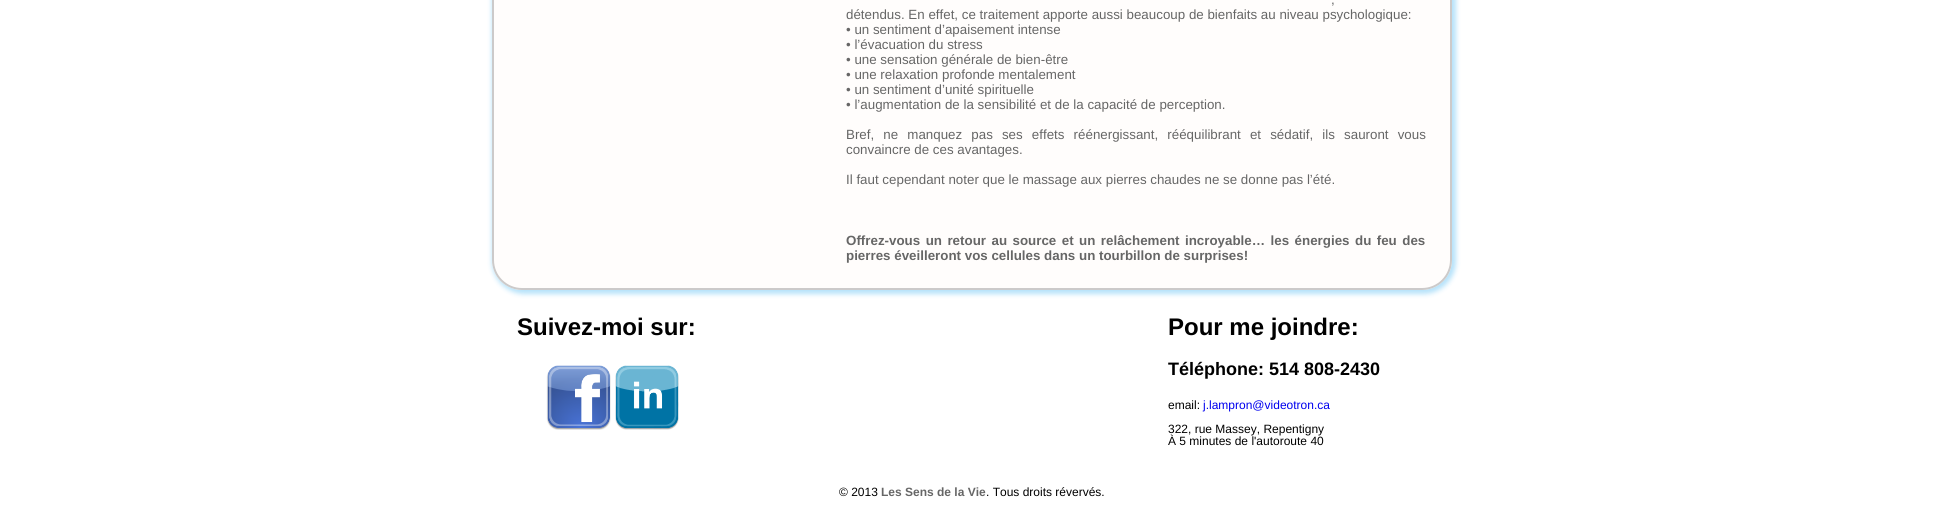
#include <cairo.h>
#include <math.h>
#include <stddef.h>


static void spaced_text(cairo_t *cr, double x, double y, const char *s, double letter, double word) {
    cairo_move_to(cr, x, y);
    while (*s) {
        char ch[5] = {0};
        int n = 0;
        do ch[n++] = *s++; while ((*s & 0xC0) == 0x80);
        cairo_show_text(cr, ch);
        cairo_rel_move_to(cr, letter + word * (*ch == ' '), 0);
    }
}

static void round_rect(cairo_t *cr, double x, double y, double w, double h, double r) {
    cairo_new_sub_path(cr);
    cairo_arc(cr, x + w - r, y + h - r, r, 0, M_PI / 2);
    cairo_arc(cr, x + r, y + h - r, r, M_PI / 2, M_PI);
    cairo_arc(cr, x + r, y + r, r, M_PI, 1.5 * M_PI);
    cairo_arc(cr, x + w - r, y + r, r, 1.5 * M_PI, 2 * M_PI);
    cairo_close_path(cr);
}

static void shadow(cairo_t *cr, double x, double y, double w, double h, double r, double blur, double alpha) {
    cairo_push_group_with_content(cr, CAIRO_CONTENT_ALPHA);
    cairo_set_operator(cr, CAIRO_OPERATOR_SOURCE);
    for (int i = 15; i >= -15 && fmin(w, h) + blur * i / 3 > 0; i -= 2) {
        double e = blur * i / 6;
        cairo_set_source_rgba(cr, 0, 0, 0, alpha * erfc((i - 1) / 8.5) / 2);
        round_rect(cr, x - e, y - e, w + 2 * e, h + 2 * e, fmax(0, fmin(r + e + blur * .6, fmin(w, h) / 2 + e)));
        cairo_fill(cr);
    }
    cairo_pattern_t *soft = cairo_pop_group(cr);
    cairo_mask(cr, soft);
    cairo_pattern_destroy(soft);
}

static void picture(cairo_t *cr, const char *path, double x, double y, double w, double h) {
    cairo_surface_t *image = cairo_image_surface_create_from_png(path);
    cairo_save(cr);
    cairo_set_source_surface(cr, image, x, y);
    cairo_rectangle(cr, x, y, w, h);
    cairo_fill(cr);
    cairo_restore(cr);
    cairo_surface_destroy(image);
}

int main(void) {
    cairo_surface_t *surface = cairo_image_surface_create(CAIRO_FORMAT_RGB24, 1943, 511);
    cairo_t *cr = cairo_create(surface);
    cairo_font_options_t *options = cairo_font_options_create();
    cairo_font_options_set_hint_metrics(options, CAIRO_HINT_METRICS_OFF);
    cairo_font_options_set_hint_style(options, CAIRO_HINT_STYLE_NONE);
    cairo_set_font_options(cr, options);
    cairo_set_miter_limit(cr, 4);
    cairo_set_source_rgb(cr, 1, 1, 1);
    cairo_paint(cr);
    cairo_save(cr);
    cairo_set_fill_rule(cr, CAIRO_FILL_RULE_EVEN_ODD);
    cairo_new_path(cr);
    cairo_move_to(cr, 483, 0);
    cairo_line_to(cr, 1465, 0);
    cairo_line_to(cr, 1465, 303);
    cairo_line_to(cr, 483, 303);
    cairo_close_path(cr);
    cairo_move_to(cr, 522, -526);
    cairo_line_to(cr, 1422, -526);
    cairo_curve_to(cr, 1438.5, -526, 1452, -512.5, 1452, -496);
    cairo_line_to(cr, 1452, 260);
    cairo_curve_to(cr, 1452, 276.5, 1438.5, 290, 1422, 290);
    cairo_line_to(cr, 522, 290);
    cairo_curve_to(cr, 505.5, 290, 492, 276.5, 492, 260);
    cairo_line_to(cr, 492, -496);
    cairo_curve_to(cr, 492, -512.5, 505.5, -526, 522, -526);
    cairo_close_path(cr);
    cairo_clip(cr);
    cairo_set_source_rgb(cr, 0.122, 0.655, 0.941);
    shadow(cr, 492, -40, 964, 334, 32, 2.5, 0.33);
    cairo_restore(cr);
    cairo_set_source_rgba(cr, 1, 0.988, 0.98, 0.71);
    round_rect(cr, 492, -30, 960, 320, 30);
    cairo_fill(cr);
    round_rect(cr, 493, -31, 958, 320, 29);
    cairo_set_source_rgba(cr, 0, 0, 0, 0.2);
    cairo_stroke(cr);
    cairo_select_font_face(cr, "Liberation Sans", CAIRO_FONT_SLANT_NORMAL, CAIRO_FONT_WEIGHT_NORMAL);
    cairo_set_font_size(cr, 13.35);
    cairo_set_source_rgb(cr, 0.4, 0.4, 0.4);
    spaced_text(cr, 1331, 4, ",", 0, 3);
    cairo_move_to(cr, 846, 19);
    cairo_show_text(cr, "détendus. En effet, ce traitement apporte aussi beaucoup de bienfaits au niveau psychologique:");
    cairo_move_to(cr, 846, 34);
    cairo_show_text(cr, "• un sentiment d’apaisement intense");
    cairo_move_to(cr, 846, 49);
    cairo_show_text(cr, "• l’évacuation du stress");
    cairo_move_to(cr, 846, 64);
    cairo_show_text(cr, "• une sensation générale de bien-être");
    cairo_move_to(cr, 846, 79);
    cairo_show_text(cr, "• une relaxation profonde mentalement");
    cairo_move_to(cr, 846, 94);
    cairo_show_text(cr, "• un sentiment d’unité spirituelle");
    cairo_move_to(cr, 846, 109);
    cairo_show_text(cr, "• l’augmentation de la sensibilité et de la capacité de perception.");
    spaced_text(cr, 846, 139, "Bref, ne manquez pas ses effets réénergissant, rééquilibrant et sédatif, ils sauront vous", 0, 5.4);
    cairo_move_to(cr, 846, 154);
    cairo_show_text(cr, "convaincre de ces avantages.");
    cairo_move_to(cr, 846, 184);
    cairo_show_text(cr, "Il faut cependant noter que le massage aux pierres chaudes ne se donne pas l’été.");
    cairo_select_font_face(cr, "Liberation Sans", CAIRO_FONT_SLANT_NORMAL, CAIRO_FONT_WEIGHT_BOLD);
    spaced_text(cr, 846, 245, "Offrez-vous un retour au source et un relâchement incroyable… les énergies du feu des", 0, 1.75);
    cairo_move_to(cr, 846, 260);
    cairo_show_text(cr, "pierres éveilleront vos cellules dans un tourbillon de surprises!");
    cairo_set_font_size(cr, 24);
    cairo_set_source_rgb(cr, 0, 0, 0);
    cairo_move_to(cr, 517, 335);
    cairo_show_text(cr, "Suivez-moi sur:");
    picture(cr, "img1.png", 546, 365, 65, 65);
    picture(cr, "img2.png", 615, 365, 64, 65);
    cairo_move_to(cr, 1168, 335);
    cairo_show_text(cr, "Pour me joindre:");
    cairo_set_font_size(cr, 18);
    cairo_move_to(cr, 1168, 375);
    cairo_show_text(cr, "Téléphone: 514 808-2430");
    cairo_select_font_face(cr, "Liberation Sans", CAIRO_FONT_SLANT_NORMAL, CAIRO_FONT_WEIGHT_NORMAL);
    cairo_set_font_size(cr, 12);
    cairo_move_to(cr, 1168, 409);
    cairo_show_text(cr, "email:");
    cairo_set_source_rgb(cr, 0, 0, 0.933);
    cairo_move_to(cr, 1203, 409);
    cairo_show_text(cr, "j.lampron@videotron.ca");
    cairo_set_source_rgb(cr, 0, 0, 0);
    cairo_move_to(cr, 1168, 433);
    cairo_show_text(cr, "322, rue Massey, Repentigny");
    cairo_move_to(cr, 1168, 445);
    cairo_show_text(cr, "À 5 minutes de l'autoroute 40");
    cairo_move_to(cr, 839, 496);
    cairo_show_text(cr, "© 2013");
    cairo_select_font_face(cr, "Liberation Sans", CAIRO_FONT_SLANT_NORMAL, CAIRO_FONT_WEIGHT_BOLD);
    cairo_set_source_rgb(cr, 0.4, 0.4, 0.4);
    cairo_move_to(cr, 881, 496);
    cairo_show_text(cr, "Les Sens de la Vie");
    cairo_select_font_face(cr, "Liberation Sans", CAIRO_FONT_SLANT_NORMAL, CAIRO_FONT_WEIGHT_NORMAL);
    cairo_set_source_rgb(cr, 0, 0, 0);
    cairo_move_to(cr, 986, 496);
    cairo_show_text(cr, ". Tous droits révervés.");
    cairo_surface_write_to_png(surface, "page.png");
    cairo_font_options_destroy(options);
    cairo_destroy(cr);
    cairo_surface_destroy(surface);
    return 0;
}
